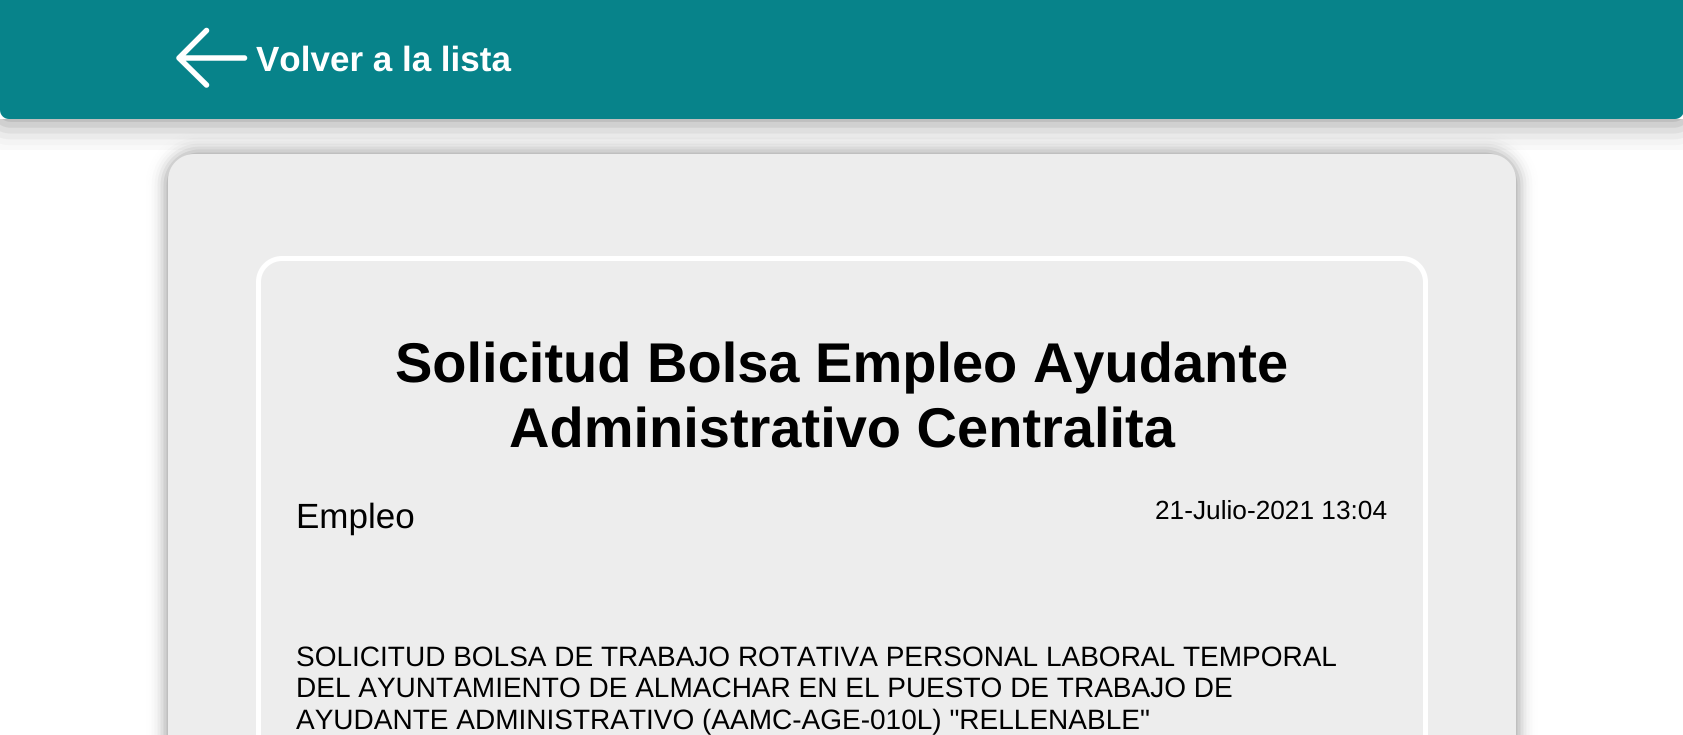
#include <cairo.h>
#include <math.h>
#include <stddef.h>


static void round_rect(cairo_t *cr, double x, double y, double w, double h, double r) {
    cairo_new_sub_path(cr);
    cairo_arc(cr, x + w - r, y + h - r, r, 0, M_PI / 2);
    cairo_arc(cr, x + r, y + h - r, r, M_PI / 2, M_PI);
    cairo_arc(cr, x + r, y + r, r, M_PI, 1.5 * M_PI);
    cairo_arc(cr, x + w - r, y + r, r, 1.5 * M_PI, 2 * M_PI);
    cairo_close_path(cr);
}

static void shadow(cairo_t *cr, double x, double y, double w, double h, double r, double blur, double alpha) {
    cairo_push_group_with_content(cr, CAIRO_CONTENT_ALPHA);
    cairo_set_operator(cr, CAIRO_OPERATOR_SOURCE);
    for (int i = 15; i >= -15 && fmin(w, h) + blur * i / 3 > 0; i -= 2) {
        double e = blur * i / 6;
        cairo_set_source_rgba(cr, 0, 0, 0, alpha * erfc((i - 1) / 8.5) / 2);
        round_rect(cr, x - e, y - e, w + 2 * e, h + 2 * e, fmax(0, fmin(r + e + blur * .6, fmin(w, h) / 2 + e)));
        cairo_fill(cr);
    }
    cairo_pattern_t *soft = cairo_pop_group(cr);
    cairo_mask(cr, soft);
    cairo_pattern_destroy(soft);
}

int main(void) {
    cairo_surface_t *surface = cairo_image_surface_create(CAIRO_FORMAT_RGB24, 1683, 735);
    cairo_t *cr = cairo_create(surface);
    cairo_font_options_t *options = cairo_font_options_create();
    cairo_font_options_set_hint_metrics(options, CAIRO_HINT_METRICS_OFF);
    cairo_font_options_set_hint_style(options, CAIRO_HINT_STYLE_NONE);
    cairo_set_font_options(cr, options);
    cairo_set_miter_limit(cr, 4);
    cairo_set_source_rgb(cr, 1, 1, 1);
    cairo_paint(cr);
    cairo_save(cr);
    cairo_rectangle(cr, 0, 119, 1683, 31);
    cairo_clip(cr);
    cairo_set_source_rgb(cr, 0, 0, 0);
    shadow(cr, 0, 0, 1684, 119, 0, 17.5, 0.5);
    cairo_restore(cr);
    cairo_set_source_rgb(cr, 0.031, 0.514, 0.541);
    cairo_new_path(cr);
    cairo_move_to(cr, 0, 0);
    cairo_line_to(cr, 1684, 0);
    cairo_line_to(cr, 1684, 110);
    cairo_curve_to(cr, 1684, 115, 1680, 119, 1675, 119);
    cairo_line_to(cr, 9, 119);
    cairo_curve_to(cr, 4, 119, 0, 115, 0, 110);
    cairo_close_path(cr);
    cairo_fill(cr);
    cairo_new_path(cr);
    cairo_move_to(cr, 206.5, 85);
    cairo_line_to(cr, 179, 58);
    cairo_move_to(cr, 179, 58);
    cairo_line_to(cr, 206.5, 30.5);
    cairo_move_to(cr, 179, 58);
    cairo_line_to(cr, 244.5, 58);
    cairo_set_source_rgb(cr, 1, 1, 1);
    cairo_set_line_width(cr, 5.5);
    cairo_set_line_cap(cr, CAIRO_LINE_CAP_ROUND);
    cairo_set_line_join(cr, CAIRO_LINE_JOIN_ROUND);
    cairo_stroke(cr);
    cairo_select_font_face(cr, "Liberation Sans", CAIRO_FONT_SLANT_NORMAL, CAIRO_FONT_WEIGHT_BOLD);
    cairo_set_font_size(cr, 35);
    cairo_move_to(cr, 256, 71);
    cairo_show_text(cr, "Volver a la lista");
    cairo_set_source_rgb(cr, 0, 0, 0);
    shadow(cr, 168, 154, 1348, 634, 26, 9, 0.5);
    cairo_set_source_rgb(cr, 0.929, 0.929, 0.929);
    round_rect(cr, 168, 154, 1348, 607, 26);
    cairo_fill(cr);
    round_rect(cr, 258.5, 258.5, 1167, 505, 23.5);
    cairo_set_source_rgb(cr, 1, 1, 1);
    cairo_set_line_width(cr, 5);
    cairo_set_line_cap(cr, CAIRO_LINE_CAP_BUTT);
    cairo_set_line_join(cr, CAIRO_LINE_JOIN_MITER);
    cairo_stroke(cr);
    cairo_set_font_size(cr, 56);
    cairo_set_source_rgb(cr, 0, 0, 0);
    cairo_move_to(cr, 395, 382);
    cairo_show_text(cr, "Solicitud Bolsa Empleo Ayudante");
    cairo_move_to(cr, 509, 447);
    cairo_show_text(cr, "Administrativo Centralita");
    cairo_select_font_face(cr, "Liberation Sans", CAIRO_FONT_SLANT_NORMAL, CAIRO_FONT_WEIGHT_NORMAL);
    cairo_set_font_size(cr, 35);
    cairo_move_to(cr, 296, 528);
    cairo_show_text(cr, "Empleo");
    cairo_set_font_size(cr, 26.25);
    cairo_move_to(cr, 1155, 519);
    cairo_show_text(cr, "21-Julio-2021 13:04");
    cairo_set_font_size(cr, 28);
    cairo_move_to(cr, 296, 666);
    cairo_show_text(cr, "SOLICITUD BOLSA DE TRABAJO ROTATIVA PERSONAL LABORAL TEMPORAL");
    cairo_move_to(cr, 296, 697);
    cairo_show_text(cr, "DEL AYUNTAMIENTO DE ALMACHAR EN EL PUESTO DE TRABAJO DE");
    cairo_move_to(cr, 296, 729);
    cairo_show_text(cr, "AYUDANTE ADMINISTRATIVO (AAMC‐AGE‐010L) \"RELLENABLE\"");
    cairo_surface_write_to_png(surface, "page.png");
    cairo_font_options_destroy(options);
    cairo_destroy(cr);
    cairo_surface_destroy(surface);
    return 0;
}
